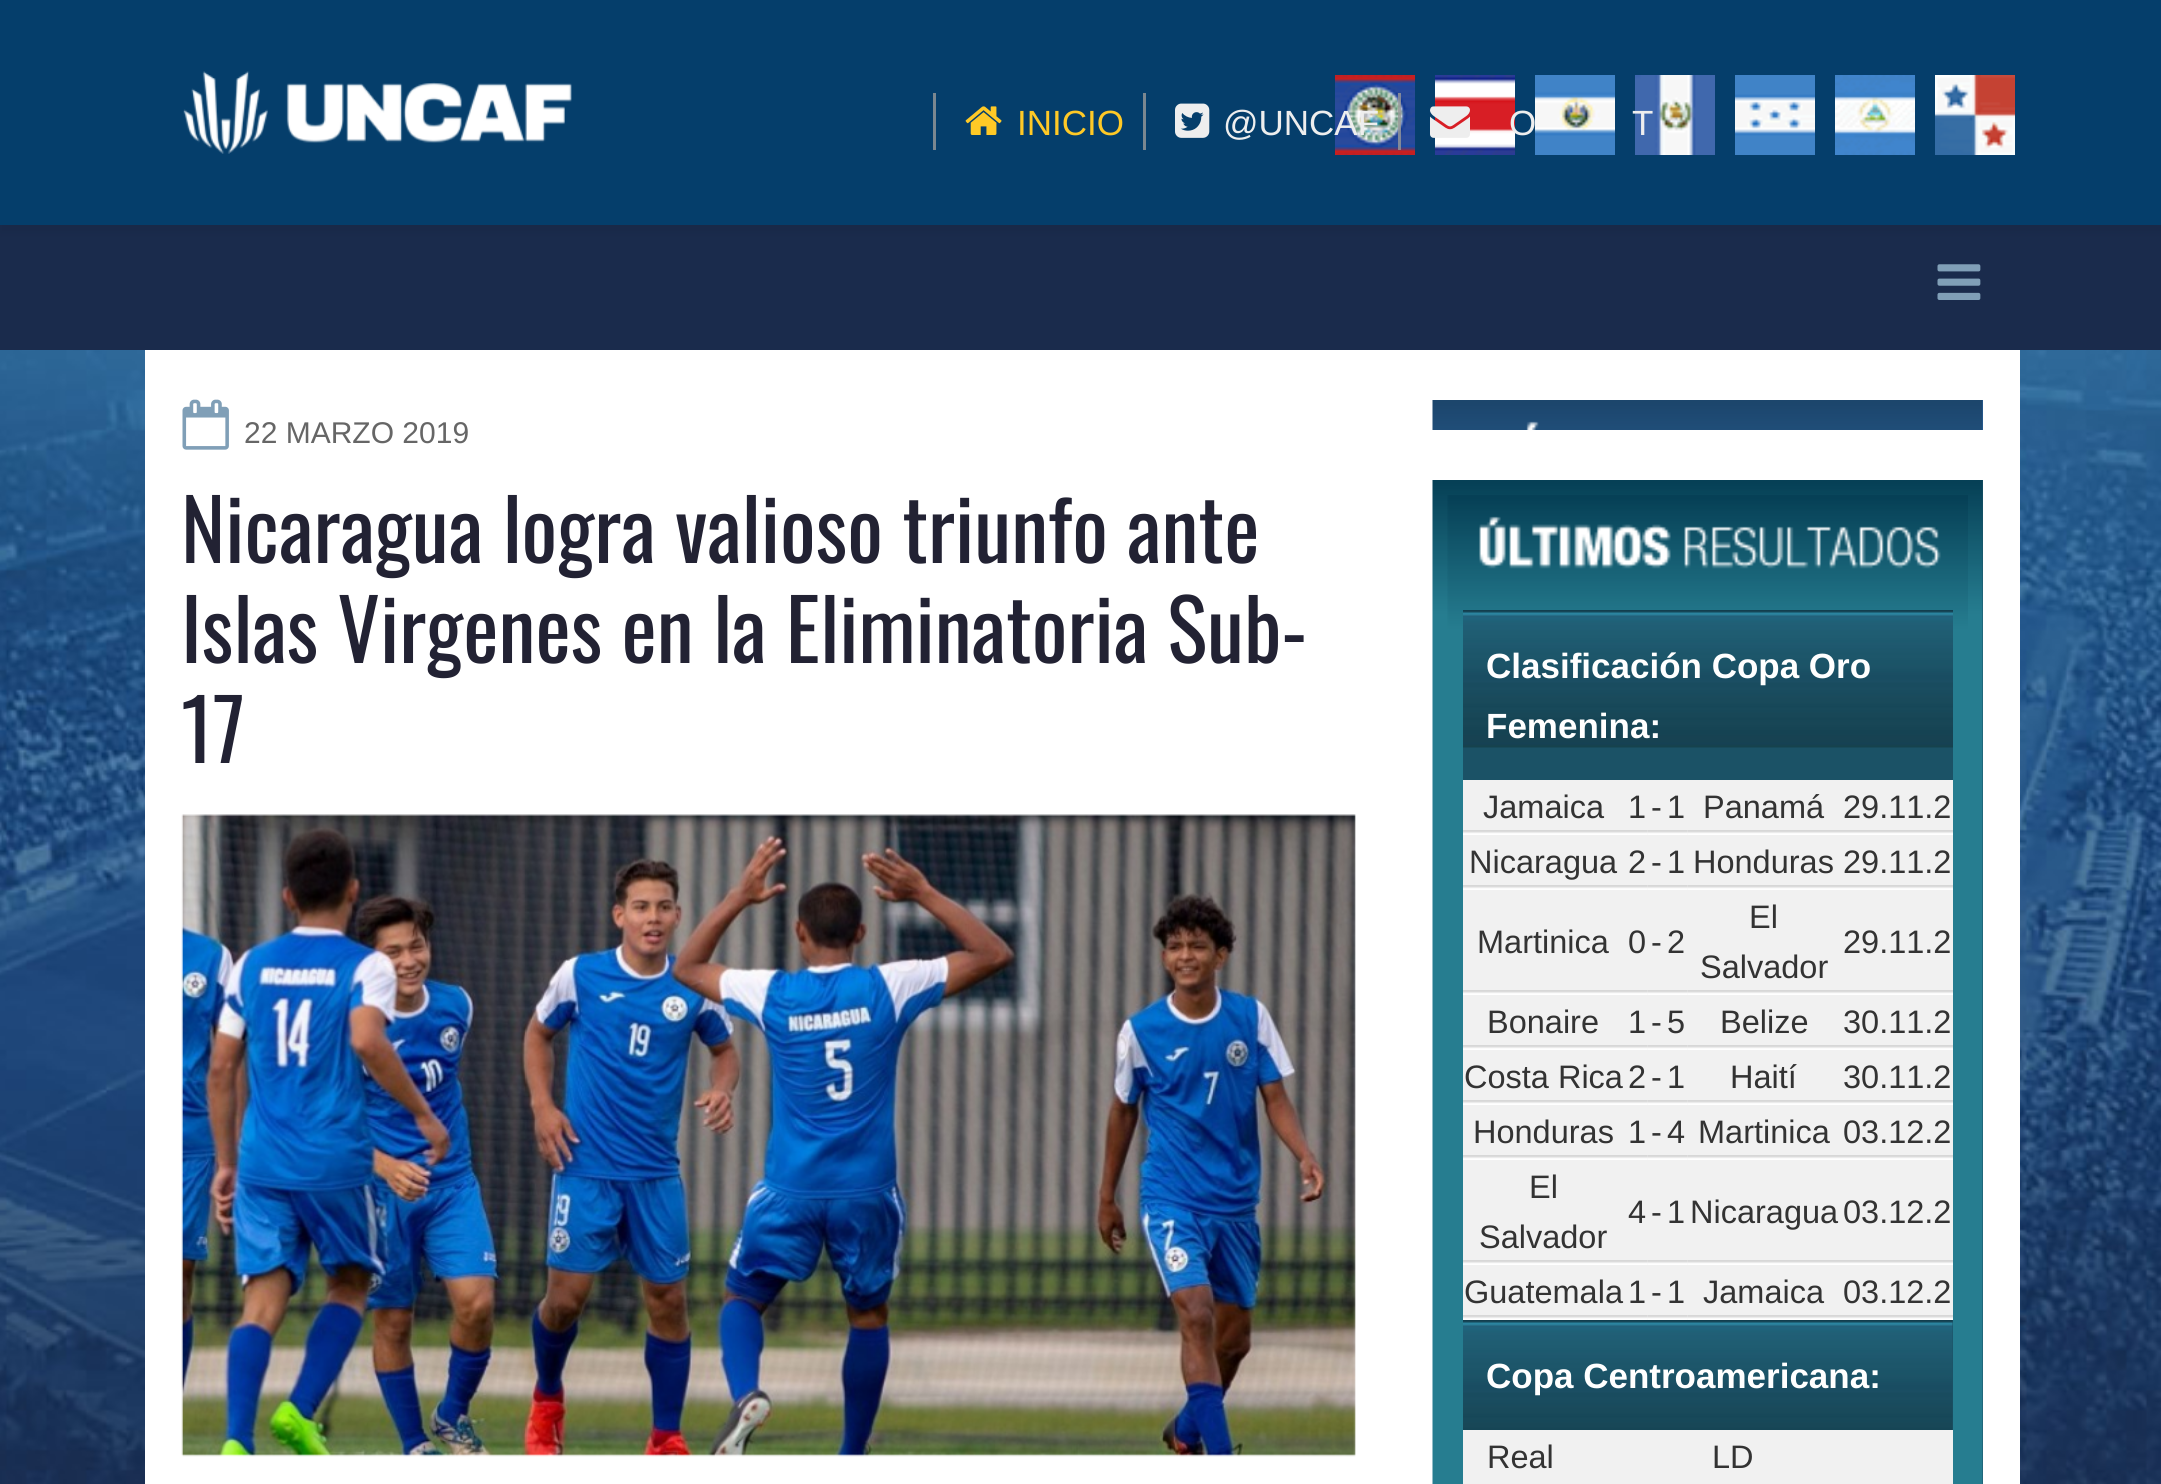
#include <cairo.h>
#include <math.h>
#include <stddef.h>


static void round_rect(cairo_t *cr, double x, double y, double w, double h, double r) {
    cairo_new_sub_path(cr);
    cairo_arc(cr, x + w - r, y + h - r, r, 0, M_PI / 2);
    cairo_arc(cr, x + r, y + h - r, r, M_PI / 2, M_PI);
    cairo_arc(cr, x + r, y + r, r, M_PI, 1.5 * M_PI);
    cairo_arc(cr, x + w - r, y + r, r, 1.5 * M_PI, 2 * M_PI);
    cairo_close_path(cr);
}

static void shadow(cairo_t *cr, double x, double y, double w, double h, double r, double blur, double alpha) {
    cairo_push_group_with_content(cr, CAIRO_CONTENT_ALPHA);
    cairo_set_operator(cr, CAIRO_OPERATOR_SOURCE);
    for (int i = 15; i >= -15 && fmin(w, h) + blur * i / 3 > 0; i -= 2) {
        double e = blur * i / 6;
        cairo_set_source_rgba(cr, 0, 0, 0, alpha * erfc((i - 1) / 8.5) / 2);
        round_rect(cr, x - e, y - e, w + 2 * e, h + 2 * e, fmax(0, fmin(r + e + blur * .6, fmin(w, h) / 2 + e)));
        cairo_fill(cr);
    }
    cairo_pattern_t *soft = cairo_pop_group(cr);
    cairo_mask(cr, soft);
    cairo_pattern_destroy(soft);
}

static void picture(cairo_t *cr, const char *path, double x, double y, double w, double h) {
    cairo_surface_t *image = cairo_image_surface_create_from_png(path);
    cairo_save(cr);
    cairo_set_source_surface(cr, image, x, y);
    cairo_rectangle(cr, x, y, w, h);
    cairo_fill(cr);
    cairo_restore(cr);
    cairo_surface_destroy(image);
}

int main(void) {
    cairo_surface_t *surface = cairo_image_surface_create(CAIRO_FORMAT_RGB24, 2161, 1484);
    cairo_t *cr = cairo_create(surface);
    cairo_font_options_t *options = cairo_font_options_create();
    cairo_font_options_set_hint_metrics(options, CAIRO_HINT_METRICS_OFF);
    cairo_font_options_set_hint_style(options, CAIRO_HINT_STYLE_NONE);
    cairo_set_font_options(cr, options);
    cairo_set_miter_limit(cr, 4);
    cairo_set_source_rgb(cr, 1, 1, 1);
    cairo_paint(cr);
    picture(cr, "img1.png", 0, 350, 2161, 1134);
    cairo_set_source_rgb(cr, 0.102, 0.169, 0.298);
    cairo_rectangle(cr, 0, 225, 2161, 125);
    cairo_fill(cr);
    cairo_set_source_rgb(cr, 0, 0, 0);
    shadow(cr, 0, 8, 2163, 225, 0, 4, 0.05);
    cairo_set_source_rgb(cr, 0.02, 0.243, 0.42);
    cairo_rectangle(cr, 0, 0, 2161, 225);
    cairo_fill(cr);
    picture(cr, "img2.png", 183, 71, 389, 83);
    picture(cr, "img3.png", 1335, 75, 80, 80);
    picture(cr, "img4.png", 1435, 75, 80, 80);
    picture(cr, "img5.png", 1535, 75, 80, 80);
    picture(cr, "img6.png", 1635, 75, 80, 80);
    picture(cr, "img7.png", 1735, 75, 80, 80);
    picture(cr, "img8.png", 1835, 75, 80, 80);
    picture(cr, "img9.png", 1935, 75, 80, 80);
    cairo_set_source_rgb(cr, 0.482, 0.529, 0.565);
    cairo_rectangle(cr, 933, 93, 3, 57);
    cairo_fill(cr);
    picture(cr, "img10.png", 965, 106, 37, 29);
    cairo_select_font_face(cr, "Liberation Sans", CAIRO_FONT_SLANT_NORMAL, CAIRO_FONT_WEIGHT_NORMAL);
    cairo_set_font_size(cr, 35);
    cairo_set_source_rgb(cr, 1, 0.788, 0.149);
    cairo_move_to(cr, 1017, 135);
    cairo_show_text(cr, "INICIO");
    cairo_set_source_rgb(cr, 0.482, 0.529, 0.565);
    cairo_rectangle(cr, 1143, 93, 3, 57);
    cairo_fill(cr);
    picture(cr, "img11.png", 1175, 103, 35, 35);
    cairo_set_source_rgb(cr, 0.933, 0.933, 0.933);
    cairo_move_to(cr, 1223, 135);
    cairo_show_text(cr, "@UNCAF");
    cairo_set_source_rgba(cr, 0.6, 0.6, 0.6, 0.8);
    cairo_rectangle(cr, 1398, 93, 3, 57);
    cairo_fill(cr);
    picture(cr, "img12.png", 1430, 106, 40, 32);
    cairo_set_source_rgb(cr, 0.933, 0.933, 0.933);
    cairo_move_to(cr, 1509, 135);
    cairo_show_text(cr, "O");
    cairo_move_to(cr, 1632, 135);
    cairo_show_text(cr, "T");
    picture(cr, "img13.png", 1937, 264, 44, 36);
    cairo_set_source_rgb(cr, 1, 1, 1);
    cairo_rectangle(cr, 145, 350, 1875, 1134);
    cairo_fill(cr);
    picture(cr, "img14.png", 182, 399, 47, 51);
    cairo_set_font_size(cr, 30);
    cairo_set_source_rgb(cr, 0.4, 0.4, 0.4);
    cairo_move_to(cr, 244, 443);
    cairo_show_text(cr, "22 MARZO 2019");
    cairo_select_font_face(cr, "Oswald", CAIRO_FONT_SLANT_NORMAL, CAIRO_FONT_WEIGHT_NORMAL);
    cairo_set_font_size(cr, 84);
    cairo_set_source_rgb(cr, 0.133, 0.133, 0.2);
    cairo_move_to(cr, 181, 563);
    cairo_show_text(cr, "Nicaragua logra valioso triunfo ante");
    cairo_move_to(cr, 181, 663);
    cairo_show_text(cr, "Islas Virgenes en la Eliminatoria Sub-");
    cairo_move_to(cr, 181, 763);
    cairo_show_text(cr, "17");
    picture(cr, "img15.png", 181, 814, 1175, 643);
    cairo_set_source_rgb(cr, 0.176, 0.392, 0.627);
    cairo_rectangle(cr, 1982, 400, 1, 30);
    cairo_fill(cr);
    picture(cr, "img16.png", 1432, 400, 551, 30);
    cairo_set_source_rgb(cr, 0.106, 0.322, 0.4);
    cairo_rectangle(cr, 1982, 480, 1, 1004);
    cairo_fill(cr);
    picture(cr, "img17.png", 1432, 480, 551, 1004);
    picture(cr, "img18.png", 1447, 495, 521, 989);
    cairo_rectangle(cr, 1463, 747, 490, 33);
    cairo_fill(cr);
    picture(cr, "img19.png", 1463, 610, 490, 138);
    cairo_select_font_face(cr, "Liberation Sans", CAIRO_FONT_SLANT_NORMAL, CAIRO_FONT_WEIGHT_BOLD);
    cairo_set_font_size(cr, 35);
    cairo_set_source_rgb(cr, 1, 1, 1);
    cairo_move_to(cr, 1486, 678);
    cairo_show_text(cr, "Clasificación Copa Oro");
    cairo_move_to(cr, 1486, 738);
    cairo_show_text(cr, "Femenina:");
    cairo_set_source_rgb(cr, 0.945, 0.945, 0.945);
    cairo_rectangle(cr, 1463, 780, 162, 50);
    cairo_fill(cr);
    picture(cr, "img20.png", 1463, 830, 162, 5);
    cairo_select_font_face(cr, "Liberation Sans", CAIRO_FONT_SLANT_NORMAL, CAIRO_FONT_WEIGHT_NORMAL);
    cairo_set_font_size(cr, 32.5);
    cairo_set_source_rgb(cr, 0.2, 0.2, 0.2);
    cairo_move_to(cr, 1483, 818);
    cairo_show_text(cr, "Jamaica");
    cairo_set_source_rgb(cr, 0.945, 0.945, 0.945);
    cairo_rectangle(cr, 1625, 780, 23, 540);
    cairo_fill(cr);
    picture(cr, "img21.png", 1625, 830, 23, 5);
    cairo_set_source_rgb(cr, 0.2, 0.2, 0.2);
    cairo_move_to(cr, 1628, 818);
    cairo_show_text(cr, "1");
    cairo_set_source_rgb(cr, 0.945, 0.945, 0.945);
    cairo_rectangle(cr, 1648, 780, 17, 50);
    cairo_fill(cr);
    picture(cr, "img22.png", 1647, 830, 18, 5);
    cairo_set_source_rgb(cr, 0.2, 0.2, 0.2);
    cairo_move_to(cr, 1651, 818);
    cairo_show_text(cr, "-");
    cairo_set_source_rgb(cr, 0.945, 0.945, 0.945);
    cairo_rectangle(cr, 1665, 780, 23, 540);
    cairo_fill(cr);
    picture(cr, "img21.png", 1665, 830, 23, 5);
    cairo_set_source_rgb(cr, 0.2, 0.2, 0.2);
    cairo_move_to(cr, 1667, 818);
    cairo_show_text(cr, "1");
    cairo_set_source_rgb(cr, 0.945, 0.945, 0.945);
    cairo_rectangle(cr, 1688, 780, 265, 50);
    cairo_fill(cr);
    picture(cr, "img23.png", 1687, 830, 153, 5);
    cairo_set_source_rgb(cr, 0.2, 0.2, 0.2);
    cairo_move_to(cr, 1703, 818);
    cairo_show_text(cr, "Panamá");
    picture(cr, "img24.png", 1840, 830, 113, 5);
    cairo_move_to(cr, 1843, 818);
    cairo_show_text(cr, "29.11.2");
    cairo_set_source_rgb(cr, 0.945, 0.945, 0.945);
    cairo_rectangle(cr, 1463, 835, 162, 50);
    cairo_fill(cr);
    picture(cr, "img20.png", 1463, 885, 162, 5);
    cairo_set_source_rgb(cr, 0.2, 0.2, 0.2);
    cairo_move_to(cr, 1469, 873);
    cairo_show_text(cr, "Nicaragua");
    picture(cr, "img21.png", 1625, 885, 23, 5);
    cairo_move_to(cr, 1628, 873);
    cairo_show_text(cr, "2");
    cairo_set_source_rgb(cr, 0.945, 0.945, 0.945);
    cairo_rectangle(cr, 1648, 835, 17, 50);
    cairo_fill(cr);
    picture(cr, "img22.png", 1647, 885, 18, 5);
    cairo_set_source_rgb(cr, 0.2, 0.2, 0.2);
    cairo_move_to(cr, 1651, 873);
    cairo_show_text(cr, "-");
    picture(cr, "img21.png", 1665, 885, 23, 5);
    cairo_move_to(cr, 1667, 873);
    cairo_show_text(cr, "1");
    cairo_set_source_rgb(cr, 0.945, 0.945, 0.945);
    cairo_rectangle(cr, 1688, 835, 265, 50);
    cairo_fill(cr);
    picture(cr, "img23.png", 1687, 885, 153, 5);
    cairo_set_source_rgb(cr, 0.2, 0.2, 0.2);
    cairo_move_to(cr, 1693, 873);
    cairo_show_text(cr, "Honduras");
    picture(cr, "img24.png", 1840, 885, 113, 5);
    cairo_move_to(cr, 1843, 873);
    cairo_show_text(cr, "29.11.2");
    cairo_set_source_rgb(cr, 0.945, 0.945, 0.945);
    cairo_rectangle(cr, 1463, 890, 162, 100);
    cairo_fill(cr);
    picture(cr, "img20.png", 1463, 990, 162, 5);
    cairo_set_source_rgb(cr, 0.2, 0.2, 0.2);
    cairo_move_to(cr, 1477, 953);
    cairo_show_text(cr, "Martinica");
    picture(cr, "img21.png", 1625, 990, 23, 5);
    cairo_move_to(cr, 1628, 953);
    cairo_show_text(cr, "0");
    cairo_set_source_rgb(cr, 0.945, 0.945, 0.945);
    cairo_rectangle(cr, 1648, 890, 17, 100);
    cairo_fill(cr);
    picture(cr, "img22.png", 1647, 990, 18, 5);
    cairo_set_source_rgb(cr, 0.2, 0.2, 0.2);
    cairo_move_to(cr, 1651, 953);
    cairo_show_text(cr, "-");
    picture(cr, "img21.png", 1665, 990, 23, 5);
    cairo_move_to(cr, 1667, 953);
    cairo_show_text(cr, "2");
    cairo_set_source_rgb(cr, 0.945, 0.945, 0.945);
    cairo_rectangle(cr, 1688, 890, 265, 100);
    cairo_fill(cr);
    picture(cr, "img23.png", 1687, 990, 153, 5);
    cairo_set_source_rgb(cr, 0.2, 0.2, 0.2);
    cairo_move_to(cr, 1749, 928);
    cairo_show_text(cr, "El");
    cairo_move_to(cr, 1700, 978);
    cairo_show_text(cr, "Salvador");
    picture(cr, "img24.png", 1840, 990, 113, 5);
    cairo_move_to(cr, 1843, 953);
    cairo_show_text(cr, "29.11.2");
    cairo_set_source_rgb(cr, 0.945, 0.945, 0.945);
    cairo_rectangle(cr, 1463, 995, 162, 50);
    cairo_fill(cr);
    picture(cr, "img20.png", 1463, 1045, 162, 5);
    cairo_set_source_rgb(cr, 0.2, 0.2, 0.2);
    cairo_move_to(cr, 1487, 1033);
    cairo_show_text(cr, "Bonaire");
    picture(cr, "img21.png", 1625, 1045, 23, 5);
    cairo_move_to(cr, 1628, 1033);
    cairo_show_text(cr, "1");
    cairo_set_source_rgb(cr, 0.945, 0.945, 0.945);
    cairo_rectangle(cr, 1648, 995, 17, 50);
    cairo_fill(cr);
    picture(cr, "img22.png", 1647, 1045, 18, 5);
    cairo_set_source_rgb(cr, 0.2, 0.2, 0.2);
    cairo_move_to(cr, 1651, 1033);
    cairo_show_text(cr, "-");
    picture(cr, "img21.png", 1665, 1045, 23, 5);
    cairo_move_to(cr, 1667, 1033);
    cairo_show_text(cr, "5");
    cairo_set_source_rgb(cr, 0.945, 0.945, 0.945);
    cairo_rectangle(cr, 1688, 995, 265, 50);
    cairo_fill(cr);
    picture(cr, "img23.png", 1687, 1045, 153, 5);
    cairo_set_source_rgb(cr, 0.2, 0.2, 0.2);
    cairo_move_to(cr, 1720, 1033);
    cairo_show_text(cr, "Belize");
    picture(cr, "img24.png", 1840, 1045, 113, 5);
    cairo_move_to(cr, 1843, 1033);
    cairo_show_text(cr, "30.11.2");
    cairo_set_source_rgb(cr, 0.945, 0.945, 0.945);
    cairo_rectangle(cr, 1463, 1050, 162, 50);
    cairo_fill(cr);
    picture(cr, "img20.png", 1463, 1100, 162, 5);
    cairo_set_source_rgb(cr, 0.2, 0.2, 0.2);
    cairo_move_to(cr, 1464, 1088);
    cairo_show_text(cr, "Costa Rica");
    picture(cr, "img21.png", 1625, 1100, 23, 5);
    cairo_move_to(cr, 1628, 1088);
    cairo_show_text(cr, "2");
    cairo_set_source_rgb(cr, 0.945, 0.945, 0.945);
    cairo_rectangle(cr, 1648, 1050, 17, 50);
    cairo_fill(cr);
    picture(cr, "img22.png", 1647, 1100, 18, 5);
    cairo_set_source_rgb(cr, 0.2, 0.2, 0.2);
    cairo_move_to(cr, 1651, 1088);
    cairo_show_text(cr, "-");
    picture(cr, "img21.png", 1665, 1100, 23, 5);
    cairo_move_to(cr, 1667, 1088);
    cairo_show_text(cr, "1");
    cairo_set_source_rgb(cr, 0.945, 0.945, 0.945);
    cairo_rectangle(cr, 1688, 1050, 265, 50);
    cairo_fill(cr);
    picture(cr, "img23.png", 1687, 1100, 153, 5);
    cairo_set_source_rgb(cr, 0.2, 0.2, 0.2);
    cairo_move_to(cr, 1730, 1088);
    cairo_show_text(cr, "Haití");
    picture(cr, "img24.png", 1840, 1100, 113, 5);
    cairo_move_to(cr, 1843, 1088);
    cairo_show_text(cr, "30.11.2");
    cairo_set_source_rgb(cr, 0.945, 0.945, 0.945);
    cairo_rectangle(cr, 1463, 1105, 162, 50);
    cairo_fill(cr);
    picture(cr, "img20.png", 1463, 1155, 162, 5);
    cairo_set_source_rgb(cr, 0.2, 0.2, 0.2);
    cairo_move_to(cr, 1473, 1143);
    cairo_show_text(cr, "Honduras");
    picture(cr, "img21.png", 1625, 1155, 23, 5);
    cairo_move_to(cr, 1628, 1143);
    cairo_show_text(cr, "1");
    cairo_set_source_rgb(cr, 0.945, 0.945, 0.945);
    cairo_rectangle(cr, 1648, 1105, 17, 50);
    cairo_fill(cr);
    picture(cr, "img22.png", 1647, 1155, 18, 5);
    cairo_set_source_rgb(cr, 0.2, 0.2, 0.2);
    cairo_move_to(cr, 1651, 1143);
    cairo_show_text(cr, "-");
    picture(cr, "img21.png", 1665, 1155, 23, 5);
    cairo_move_to(cr, 1667, 1143);
    cairo_show_text(cr, "4");
    cairo_set_source_rgb(cr, 0.945, 0.945, 0.945);
    cairo_rectangle(cr, 1688, 1105, 265, 50);
    cairo_fill(cr);
    picture(cr, "img23.png", 1687, 1155, 153, 5);
    cairo_set_source_rgb(cr, 0.2, 0.2, 0.2);
    cairo_move_to(cr, 1698, 1143);
    cairo_show_text(cr, "Martinica");
    picture(cr, "img24.png", 1840, 1155, 113, 5);
    cairo_move_to(cr, 1843, 1143);
    cairo_show_text(cr, "03.12.2");
    cairo_set_source_rgb(cr, 0.945, 0.945, 0.945);
    cairo_rectangle(cr, 1463, 1160, 162, 100);
    cairo_fill(cr);
    picture(cr, "img20.png", 1463, 1260, 162, 5);
    cairo_set_source_rgb(cr, 0.2, 0.2, 0.2);
    cairo_move_to(cr, 1529, 1198);
    cairo_show_text(cr, "El");
    cairo_move_to(cr, 1479, 1248);
    cairo_show_text(cr, "Salvador");
    picture(cr, "img21.png", 1625, 1260, 23, 5);
    cairo_move_to(cr, 1628, 1223);
    cairo_show_text(cr, "4");
    cairo_set_source_rgb(cr, 0.945, 0.945, 0.945);
    cairo_rectangle(cr, 1648, 1160, 17, 100);
    cairo_fill(cr);
    picture(cr, "img22.png", 1647, 1260, 18, 5);
    cairo_set_source_rgb(cr, 0.2, 0.2, 0.2);
    cairo_move_to(cr, 1651, 1223);
    cairo_show_text(cr, "-");
    picture(cr, "img21.png", 1665, 1260, 23, 5);
    cairo_move_to(cr, 1667, 1223);
    cairo_show_text(cr, "1");
    cairo_set_source_rgb(cr, 0.945, 0.945, 0.945);
    cairo_rectangle(cr, 1688, 1160, 265, 100);
    cairo_fill(cr);
    picture(cr, "img23.png", 1687, 1260, 153, 5);
    cairo_set_source_rgb(cr, 0.2, 0.2, 0.2);
    cairo_move_to(cr, 1690, 1223);
    cairo_show_text(cr, "Nicaragua");
    picture(cr, "img24.png", 1840, 1260, 113, 5);
    cairo_move_to(cr, 1843, 1223);
    cairo_show_text(cr, "03.12.2");
    cairo_set_source_rgb(cr, 0.945, 0.945, 0.945);
    cairo_rectangle(cr, 1463, 1265, 162, 50);
    cairo_fill(cr);
    picture(cr, "img20.png", 1463, 1315, 162, 5);
    cairo_set_source_rgb(cr, 0.2, 0.2, 0.2);
    cairo_move_to(cr, 1464, 1303);
    cairo_show_text(cr, "Guatemala");
    picture(cr, "img21.png", 1625, 1315, 23, 5);
    cairo_move_to(cr, 1628, 1303);
    cairo_show_text(cr, "1");
    cairo_set_source_rgb(cr, 0.945, 0.945, 0.945);
    cairo_rectangle(cr, 1648, 1265, 17, 50);
    cairo_fill(cr);
    picture(cr, "img22.png", 1647, 1315, 18, 5);
    cairo_set_source_rgb(cr, 0.2, 0.2, 0.2);
    cairo_move_to(cr, 1651, 1303);
    cairo_show_text(cr, "-");
    picture(cr, "img21.png", 1665, 1315, 23, 5);
    cairo_move_to(cr, 1667, 1303);
    cairo_show_text(cr, "1");
    cairo_set_source_rgb(cr, 0.945, 0.945, 0.945);
    cairo_rectangle(cr, 1688, 1265, 265, 50);
    cairo_fill(cr);
    picture(cr, "img23.png", 1687, 1315, 153, 5);
    cairo_set_source_rgb(cr, 0.2, 0.2, 0.2);
    cairo_move_to(cr, 1703, 1303);
    cairo_show_text(cr, "Jamaica");
    picture(cr, "img24.png", 1840, 1315, 113, 5);
    cairo_move_to(cr, 1843, 1303);
    cairo_show_text(cr, "03.12.2");
    cairo_set_source_rgb(cr, 0.106, 0.322, 0.4);
    cairo_rectangle(cr, 1952, 1320, 1, 110);
    cairo_fill(cr);
    picture(cr, "img25.png", 1463, 1320, 490, 110);
    cairo_select_font_face(cr, "Liberation Sans", CAIRO_FONT_SLANT_NORMAL, CAIRO_FONT_WEIGHT_BOLD);
    cairo_set_font_size(cr, 35);
    cairo_set_source_rgb(cr, 1, 1, 1);
    cairo_move_to(cr, 1486, 1388);
    cairo_show_text(cr, "Copa Centroamericana:");
    cairo_set_source_rgb(cr, 0.945, 0.945, 0.945);
    cairo_rectangle(cr, 1463, 1430, 490, 54);
    cairo_fill(cr);
    cairo_select_font_face(cr, "Liberation Sans", CAIRO_FONT_SLANT_NORMAL, CAIRO_FONT_WEIGHT_NORMAL);
    cairo_set_font_size(cr, 32.5);
    cairo_set_source_rgb(cr, 0.2, 0.2, 0.2);
    cairo_move_to(cr, 1487, 1468);
    cairo_show_text(cr, "Real");
    cairo_move_to(cr, 1712, 1468);
    cairo_show_text(cr, "LD");
    cairo_surface_write_to_png(surface, "page.png");
    cairo_font_options_destroy(options);
    cairo_destroy(cr);
    cairo_surface_destroy(surface);
    return 0;
}
